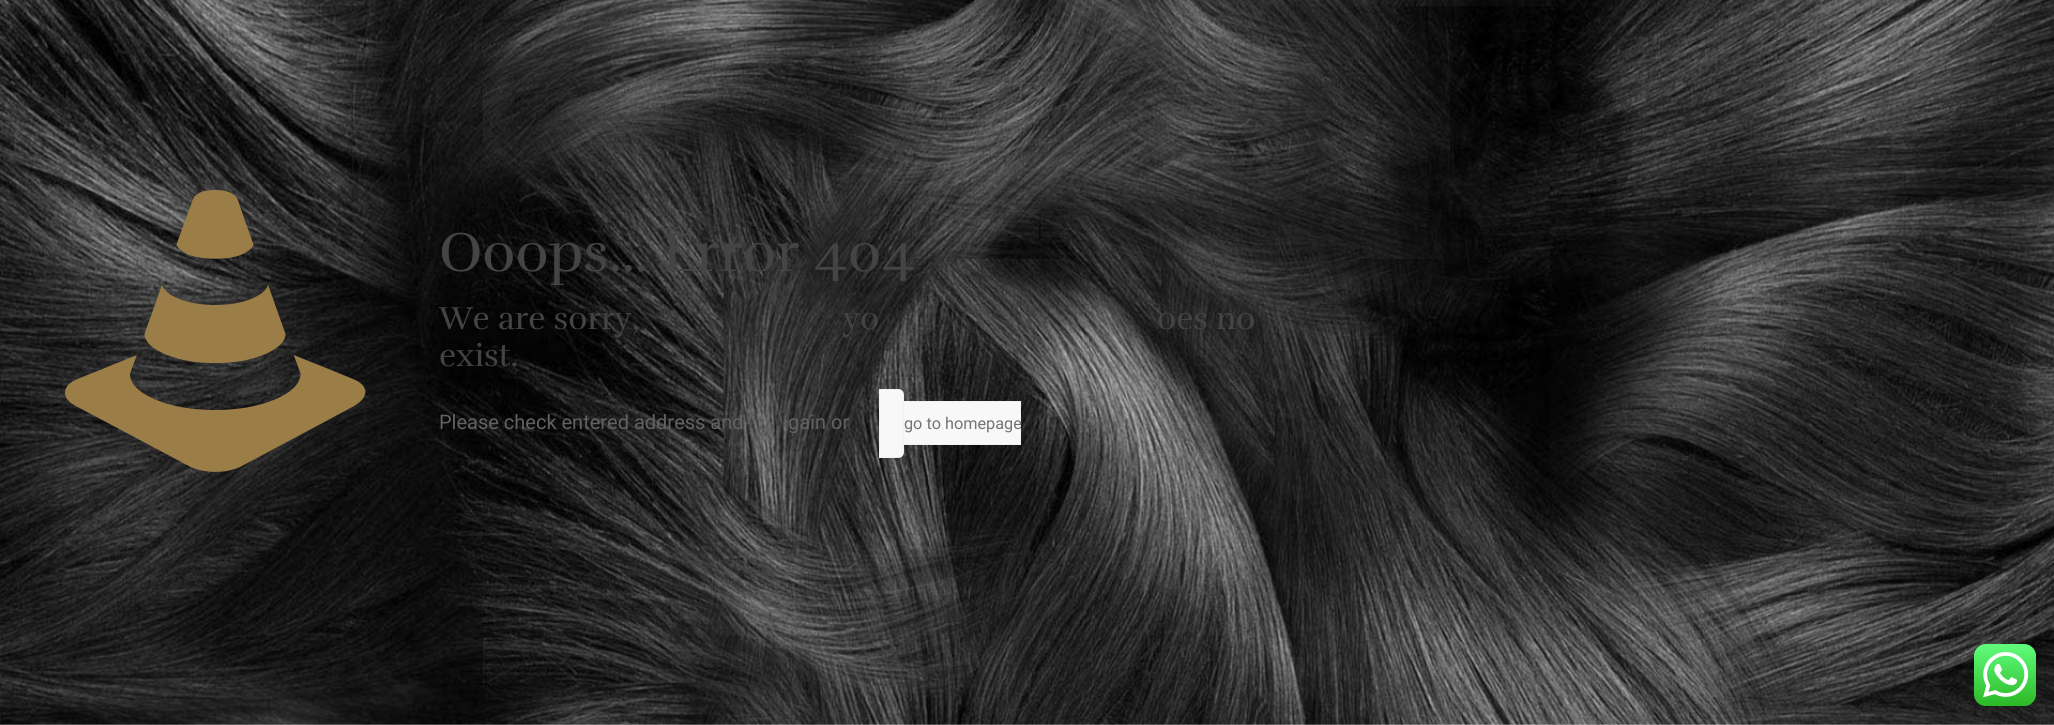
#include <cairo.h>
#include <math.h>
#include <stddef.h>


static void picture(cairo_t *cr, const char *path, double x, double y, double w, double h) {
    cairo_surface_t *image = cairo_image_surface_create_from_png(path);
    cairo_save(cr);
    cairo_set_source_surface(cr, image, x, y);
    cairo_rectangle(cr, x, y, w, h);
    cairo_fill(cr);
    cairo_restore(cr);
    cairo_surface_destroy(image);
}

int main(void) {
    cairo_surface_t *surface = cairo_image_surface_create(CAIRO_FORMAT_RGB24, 2054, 725);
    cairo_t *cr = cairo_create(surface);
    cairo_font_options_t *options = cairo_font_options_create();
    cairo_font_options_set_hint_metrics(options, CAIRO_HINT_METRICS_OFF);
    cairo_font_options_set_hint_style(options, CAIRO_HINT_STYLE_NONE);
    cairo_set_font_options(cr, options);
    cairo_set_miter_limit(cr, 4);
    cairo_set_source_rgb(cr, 1, 1, 1);
    cairo_paint(cr);
    picture(cr, "img1.png", 0, 0, 2054, 725);
    picture(cr, "img2.png", 65, 190, 301, 282);
    cairo_select_font_face(cr, "Rufina", CAIRO_FONT_SLANT_NORMAL, CAIRO_FONT_WEIGHT_NORMAL);
    cairo_set_font_size(cr, 56.25);
    cairo_set_source_rgb(cr, 0.267, 0.267, 0.267);
    cairo_move_to(cr, 439, 271);
    cairo_show_text(cr, "Ooops... Error 404");
    cairo_set_font_size(cr, 32.5);
    cairo_move_to(cr, 439, 329);
    cairo_show_text(cr, "We are sorry,");
    cairo_move_to(cr, 843, 329);
    cairo_show_text(cr, "yo");
    cairo_move_to(cr, 1157, 329);
    cairo_show_text(cr, "oes no");
    cairo_move_to(cr, 439, 366);
    cairo_show_text(cr, "exist.");
    cairo_select_font_face(cr, "Roboto", CAIRO_FONT_SLANT_NORMAL, CAIRO_FONT_WEIGHT_NORMAL);
    cairo_set_font_size(cr, 20);
    cairo_set_source_rgb(cr, 0.384, 0.384, 0.384);
    cairo_move_to(cr, 439, 429);
    cairo_show_text(cr, "Please check entered address and");
    cairo_move_to(cr, 788, 429);
    cairo_show_text(cr, "gain or");
    cairo_set_source_rgb(cr, 0.969, 0.969, 0.969);
    cairo_rectangle(cr, 904, 401, 117, 44);
    cairo_fill(cr);
    cairo_rectangle(cr, 879.5, 401.5, 141, 43);
    cairo_set_source_rgba(cr, 0, 0, 0, 0.03);
    cairo_set_line_width(cr, 1);
    cairo_stroke(cr);
    cairo_set_font_size(cr, 16.25);
    cairo_set_source_rgb(cr, 0.455, 0.455, 0.455);
    cairo_move_to(cr, 904, 429);
    cairo_show_text(cr, "go to homepage");
    cairo_set_source_rgb(cr, 0.969, 0.969, 0.969);
    cairo_new_path(cr);
    cairo_move_to(cr, 879, 389);
    cairo_line_to(cr, 898, 389);
    cairo_curve_to(cr, 901.5, 389, 904, 391.5, 904, 395);
    cairo_line_to(cr, 904, 452);
    cairo_curve_to(cr, 904, 455.5, 901.5, 458, 898, 458);
    cairo_line_to(cr, 879, 458);
    cairo_close_path(cr);
    cairo_fill(cr);
    cairo_rectangle(cr, 879.5, 389.5, 24, 68);
    cairo_set_source_rgba(cr, 0, 0, 0, 0.03);
    cairo_stroke(cr);
    picture(cr, "img3.png", 1974, 644, 62, 62);
    cairo_surface_write_to_png(surface, "page.png");
    cairo_font_options_destroy(options);
    cairo_destroy(cr);
    cairo_surface_destroy(surface);
    return 0;
}
